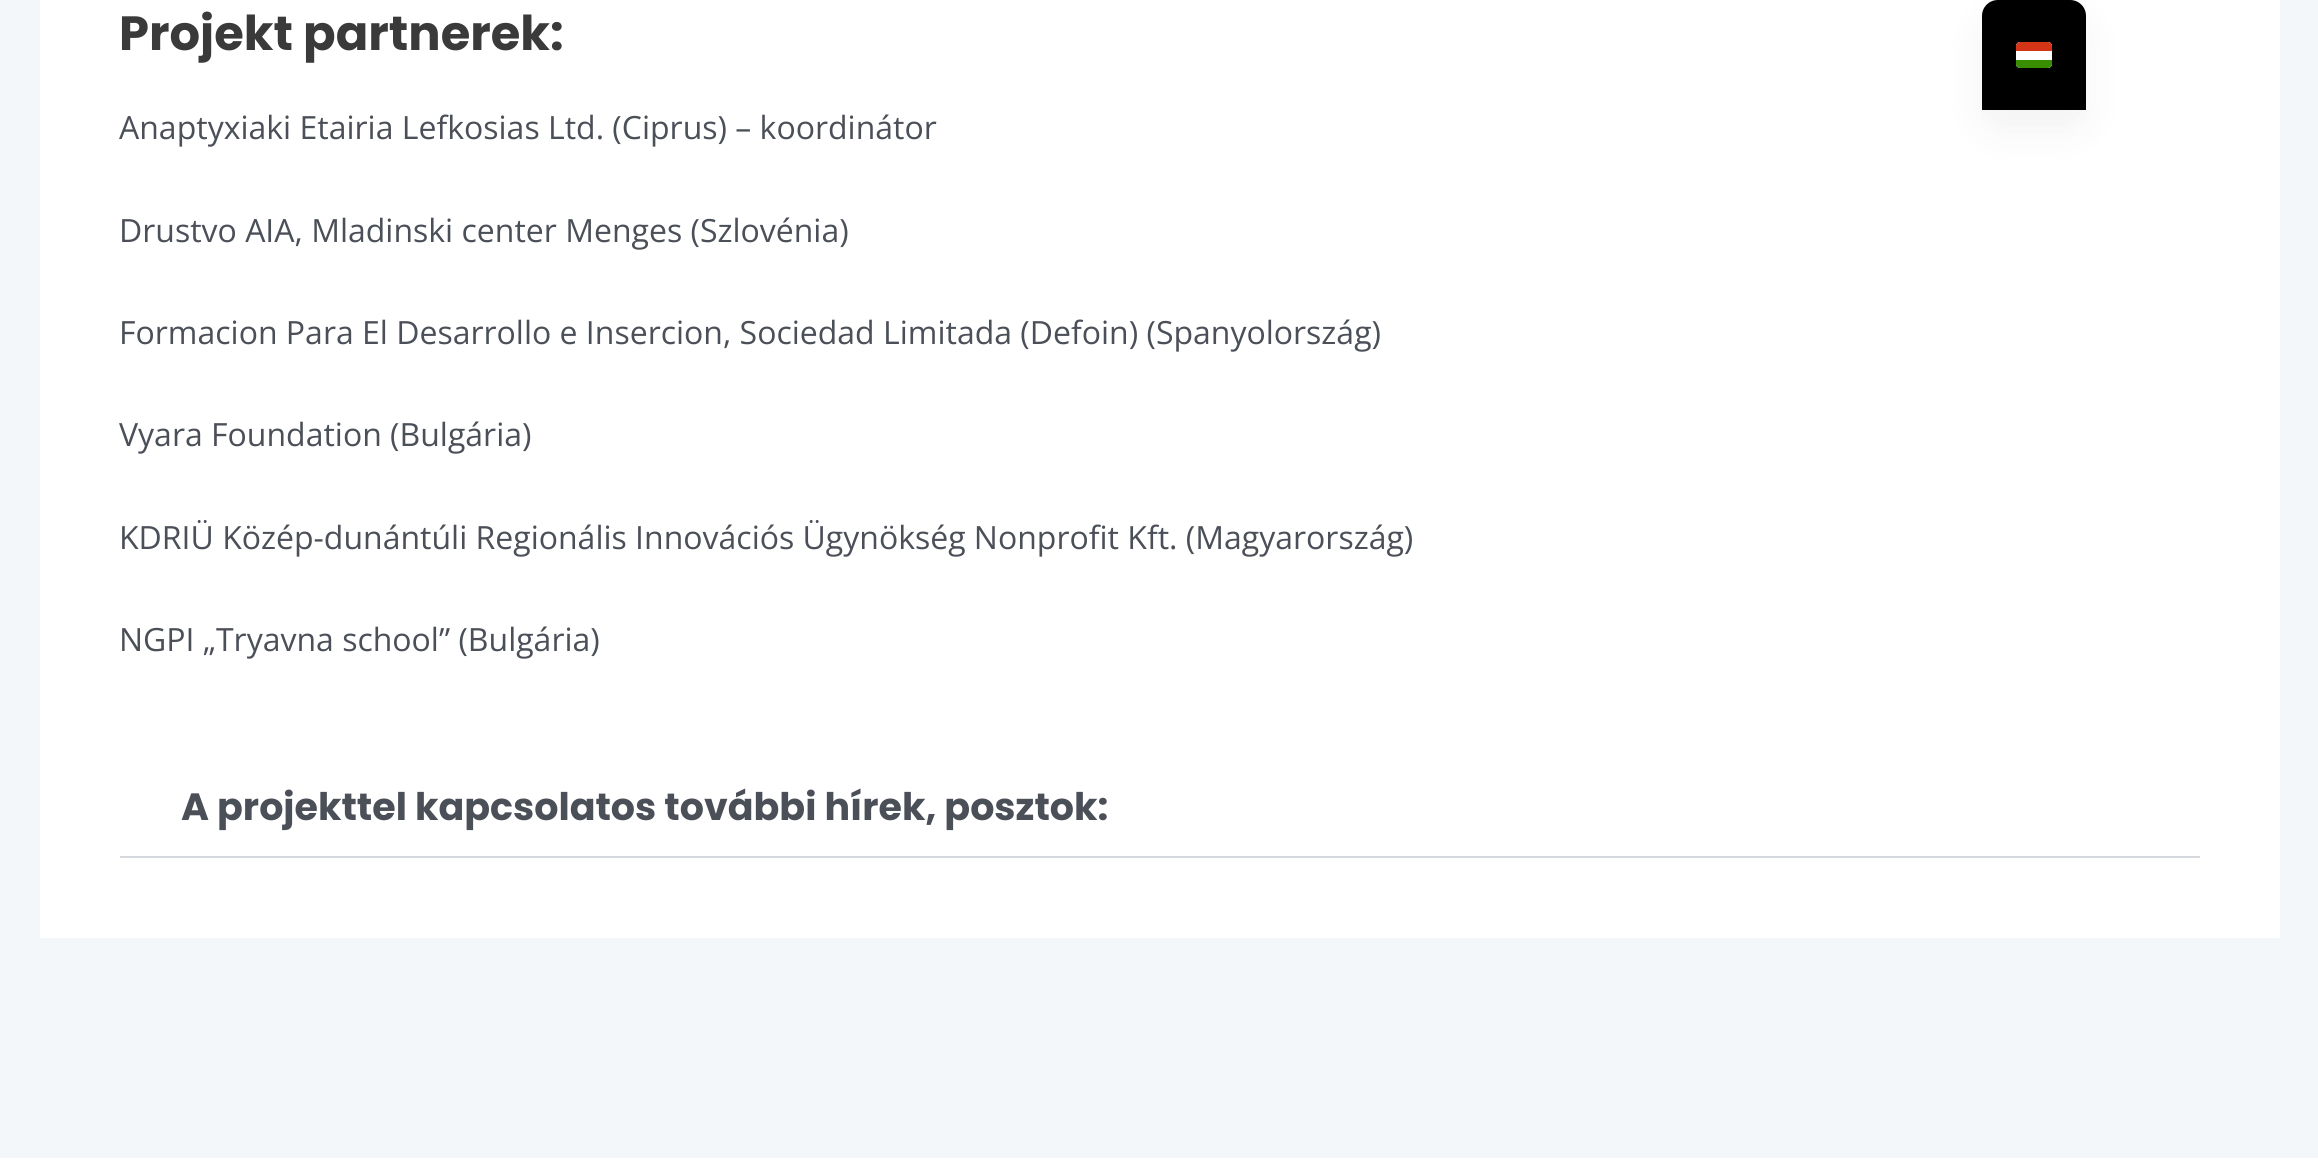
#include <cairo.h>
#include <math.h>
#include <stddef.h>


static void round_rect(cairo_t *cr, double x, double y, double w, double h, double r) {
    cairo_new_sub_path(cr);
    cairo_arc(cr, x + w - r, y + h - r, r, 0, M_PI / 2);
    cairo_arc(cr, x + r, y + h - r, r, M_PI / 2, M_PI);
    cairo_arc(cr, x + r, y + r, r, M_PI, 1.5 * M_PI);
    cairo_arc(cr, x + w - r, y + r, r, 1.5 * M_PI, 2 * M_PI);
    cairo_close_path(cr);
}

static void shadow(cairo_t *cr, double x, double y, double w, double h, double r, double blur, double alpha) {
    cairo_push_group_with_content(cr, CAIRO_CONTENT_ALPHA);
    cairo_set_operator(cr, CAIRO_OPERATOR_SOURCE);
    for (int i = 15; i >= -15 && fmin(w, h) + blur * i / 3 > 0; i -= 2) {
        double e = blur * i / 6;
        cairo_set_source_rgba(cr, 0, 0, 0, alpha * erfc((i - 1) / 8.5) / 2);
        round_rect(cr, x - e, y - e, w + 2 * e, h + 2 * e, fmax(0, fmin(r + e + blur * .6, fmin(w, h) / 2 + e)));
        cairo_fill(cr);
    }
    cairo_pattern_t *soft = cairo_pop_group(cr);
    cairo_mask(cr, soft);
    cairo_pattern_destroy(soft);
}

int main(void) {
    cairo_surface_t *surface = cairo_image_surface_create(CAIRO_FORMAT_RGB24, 2318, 1168);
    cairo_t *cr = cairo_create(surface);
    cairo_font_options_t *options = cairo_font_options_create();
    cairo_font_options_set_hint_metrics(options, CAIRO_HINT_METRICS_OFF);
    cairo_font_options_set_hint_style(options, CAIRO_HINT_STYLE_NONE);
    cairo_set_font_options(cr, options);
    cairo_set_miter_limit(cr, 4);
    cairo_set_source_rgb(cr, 1, 1, 1);
    cairo_paint(cr);
    cairo_set_source_rgb(cr, 0.957, 0.965, 0.98);
    cairo_rectangle(cr, 0, 0, 2318, 1158);
    cairo_fill(cr);
    cairo_set_source_rgb(cr, 1, 1, 1);
    cairo_rectangle(cr, 40, 0, 2240, 938);
    cairo_fill(cr);
    cairo_select_font_face(cr, "Poppins", CAIRO_FONT_SLANT_NORMAL, CAIRO_FONT_WEIGHT_BOLD);
    cairo_set_font_size(cr, 48);
    cairo_set_source_rgb(cr, 0.227, 0.227, 0.227);
    cairo_move_to(cr, 119, 50);
    cairo_show_text(cr, "Projekt partnerek:");
    cairo_select_font_face(cr, "Open Sans", CAIRO_FONT_SLANT_NORMAL, CAIRO_FONT_WEIGHT_NORMAL);
    cairo_set_font_size(cr, 32);
    cairo_set_source_rgb(cr, 0.294, 0.31, 0.345);
    cairo_move_to(cr, 119, 139);
    cairo_show_text(cr, "Anaptyxiaki Etairia Lefkosias Ltd. (Ciprus) – koordinátor");
    cairo_move_to(cr, 119, 242);
    cairo_show_text(cr, "Drustvo AIA, Mladinski center Menges (Szlovénia)");
    cairo_move_to(cr, 119, 344);
    cairo_show_text(cr, "Formacion Para El Desarrollo e Insercion, Sociedad Limitada (Defoin) (Spanyolország)");
    cairo_move_to(cr, 119, 446);
    cairo_show_text(cr, "Vyara Foundation (Bulgária)");
    cairo_move_to(cr, 119, 549);
    cairo_show_text(cr, "KDRIÜ Közép-dunántúli Regionális Innovációs Ügynökség Nonprofit Kft. (Magyarország)");
    cairo_move_to(cr, 119, 651);
    cairo_show_text(cr, "NGPI „Tryavna school” (Bulgária)");
    cairo_set_source_rgb(cr, 0.835, 0.847, 0.863);
    cairo_rectangle(cr, 120, 856, 2080, 2);
    cairo_fill(cr);
    cairo_select_font_face(cr, "Poppins", CAIRO_FONT_SLANT_NORMAL, CAIRO_FONT_WEIGHT_BOLD);
    cairo_set_font_size(cr, 38);
    cairo_set_source_rgb(cr, 0.294, 0.31, 0.345);
    cairo_move_to(cr, 181, 820);
    cairo_show_text(cr, "A projekttel kapcsolatos további hírek, posztok:");
    cairo_set_source_rgb(cr, 0, 0, 0);
    shadow(cr, 1982, 20, 104, 110, 16, 20, 0.05);
    cairo_set_source_rgb(cr, 0, 0, 0);
    cairo_new_path(cr);
    cairo_move_to(cr, 1998, 0);
    cairo_line_to(cr, 2070, 0);
    cairo_curve_to(cr, 2079, 0, 2086, 7, 2086, 16);
    cairo_line_to(cr, 2086, 110);
    cairo_line_to(cr, 1982, 110);
    cairo_line_to(cr, 1982, 16);
    cairo_curve_to(cr, 1982, 7, 1989, 0, 1998, 0);
    cairo_close_path(cr);
    cairo_fill(cr);
    cairo_set_source_rgb(cr, 1, 1, 1);
    round_rect(cr, 2016, 42, 36, 26, 4);
    cairo_fill(cr);
    cairo_set_source_rgb(cr, 0.22, 0.553, 0);
    cairo_new_path(cr);
    cairo_move_to(cr, 2016, 60);
    cairo_line_to(cr, 2052, 60);
    cairo_line_to(cr, 2052, 64);
    cairo_curve_to(cr, 2052, 66, 2050, 68, 2048, 68);
    cairo_line_to(cr, 2020, 68);
    cairo_curve_to(cr, 2018, 68, 2016, 66, 2016, 64);
    cairo_close_path(cr);
    cairo_fill(cr);
    cairo_set_source_rgb(cr, 0.831, 0.208, 0.086);
    cairo_new_path(cr);
    cairo_move_to(cr, 2020, 42);
    cairo_line_to(cr, 2048, 42);
    cairo_curve_to(cr, 2050, 42, 2052, 44, 2052, 46);
    cairo_line_to(cr, 2052, 51);
    cairo_line_to(cr, 2016, 51);
    cairo_line_to(cr, 2016, 46);
    cairo_curve_to(cr, 2016, 44, 2018, 42, 2020, 42);
    cairo_close_path(cr);
    cairo_fill(cr);
    cairo_surface_write_to_png(surface, "page.png");
    cairo_font_options_destroy(options);
    cairo_destroy(cr);
    cairo_surface_destroy(surface);
    return 0;
}
